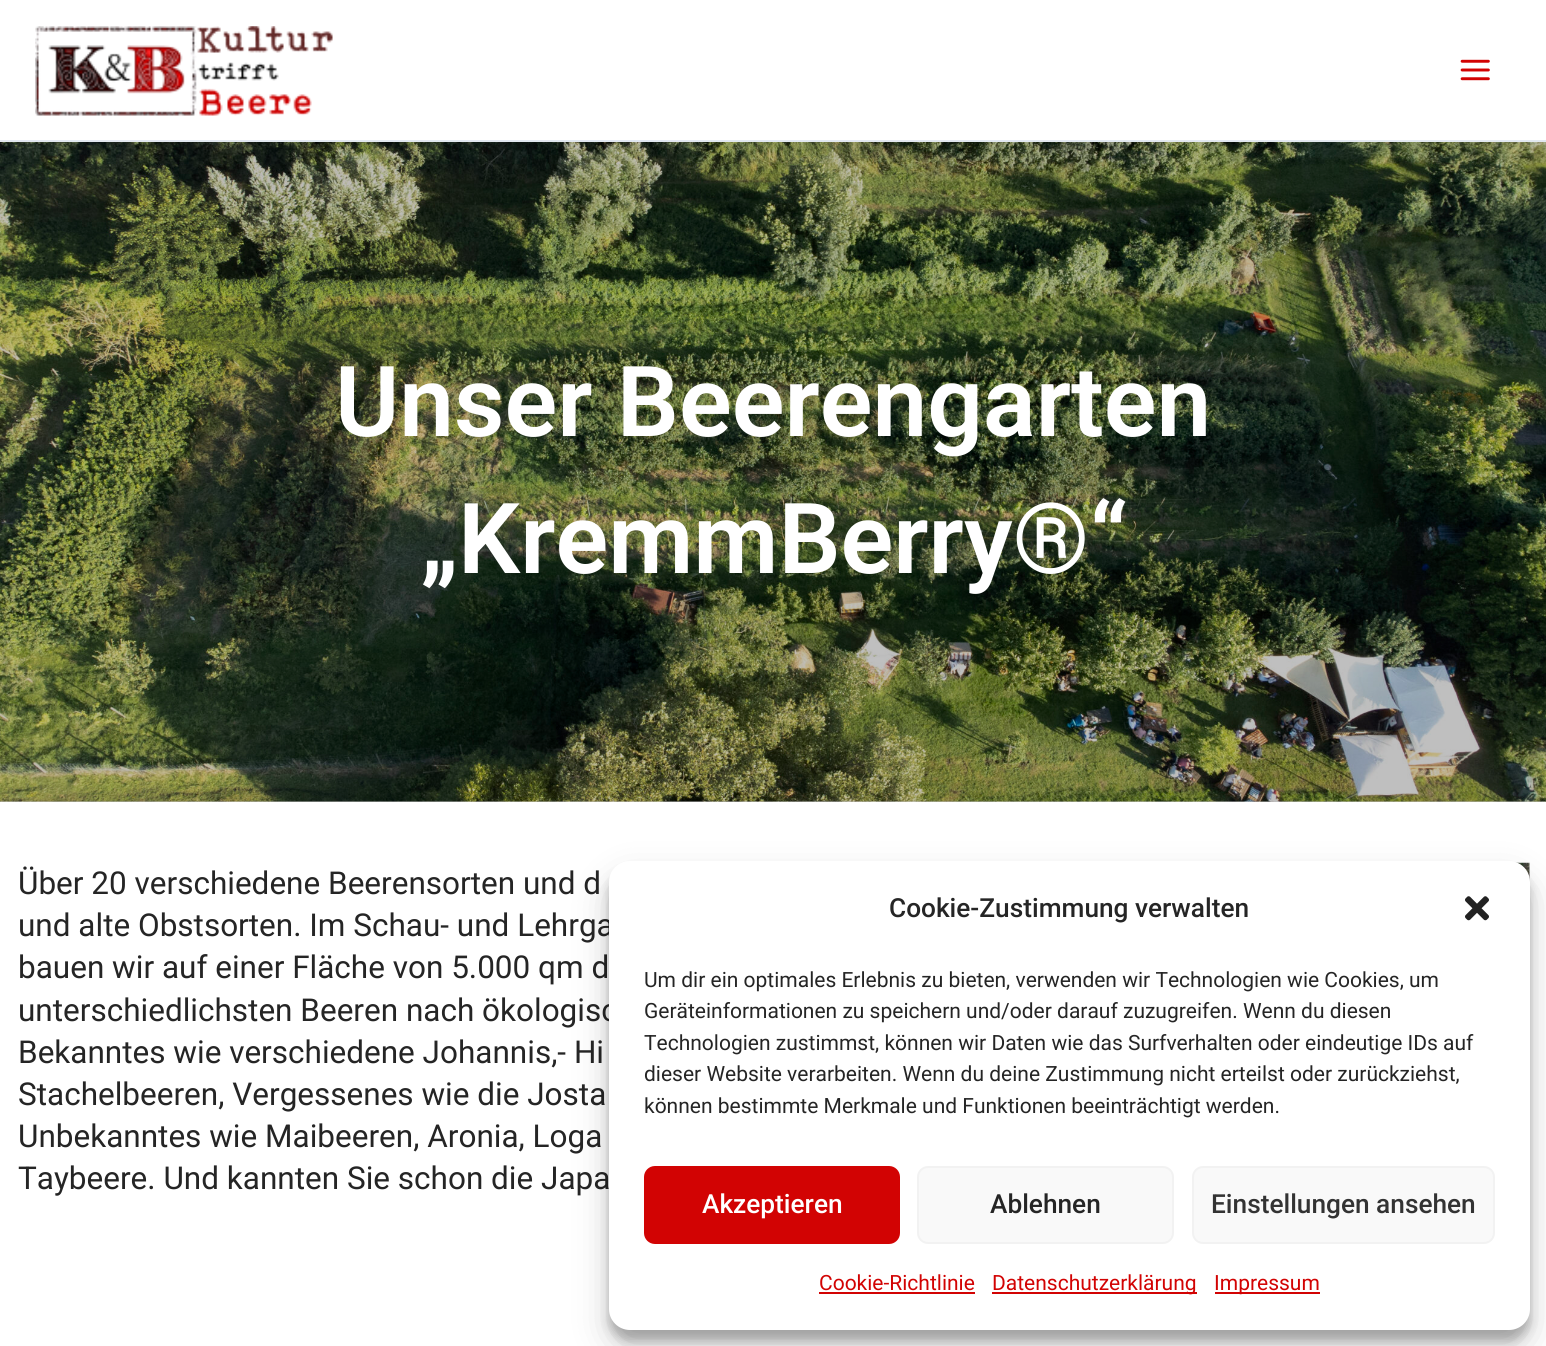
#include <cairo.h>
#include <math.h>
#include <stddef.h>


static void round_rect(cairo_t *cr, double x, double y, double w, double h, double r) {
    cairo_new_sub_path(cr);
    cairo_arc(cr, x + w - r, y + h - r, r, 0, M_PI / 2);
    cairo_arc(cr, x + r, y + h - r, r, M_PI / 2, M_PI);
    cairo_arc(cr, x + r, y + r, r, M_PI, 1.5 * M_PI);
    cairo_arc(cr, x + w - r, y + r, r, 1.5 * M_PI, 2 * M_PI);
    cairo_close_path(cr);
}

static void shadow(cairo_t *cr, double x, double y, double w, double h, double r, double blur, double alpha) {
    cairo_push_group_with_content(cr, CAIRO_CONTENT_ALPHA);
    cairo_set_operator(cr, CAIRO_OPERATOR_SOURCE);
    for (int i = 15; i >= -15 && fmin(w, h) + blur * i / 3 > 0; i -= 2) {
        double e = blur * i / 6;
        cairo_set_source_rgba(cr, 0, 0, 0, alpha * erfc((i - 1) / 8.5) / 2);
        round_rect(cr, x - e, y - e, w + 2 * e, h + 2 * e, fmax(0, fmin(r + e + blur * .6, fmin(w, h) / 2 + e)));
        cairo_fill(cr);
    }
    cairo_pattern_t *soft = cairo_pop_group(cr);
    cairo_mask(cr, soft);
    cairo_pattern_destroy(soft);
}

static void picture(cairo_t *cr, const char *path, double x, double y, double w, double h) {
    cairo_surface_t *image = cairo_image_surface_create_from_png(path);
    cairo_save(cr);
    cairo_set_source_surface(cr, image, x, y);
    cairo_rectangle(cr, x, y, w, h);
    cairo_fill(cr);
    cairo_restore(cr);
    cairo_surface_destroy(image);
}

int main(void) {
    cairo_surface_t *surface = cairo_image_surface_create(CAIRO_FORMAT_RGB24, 1546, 1346);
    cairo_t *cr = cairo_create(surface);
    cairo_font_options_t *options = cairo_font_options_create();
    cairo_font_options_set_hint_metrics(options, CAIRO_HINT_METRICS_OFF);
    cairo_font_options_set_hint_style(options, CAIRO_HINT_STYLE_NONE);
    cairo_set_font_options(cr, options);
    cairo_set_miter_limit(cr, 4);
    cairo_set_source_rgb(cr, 1, 1, 1);
    cairo_paint(cr);
    cairo_set_source_rgb(cr, 0.749, 0.749, 0.749);
    cairo_rectangle(cr, 0, 801, 1546, 1);
    cairo_fill(cr);
    cairo_set_source_rgb(cr, 0.886, 0.91, 0.941);
    cairo_rectangle(cr, 0, 140, 1546, 2);
    cairo_fill(cr);
    picture(cr, "img1.png", 35, 26, 298, 90);
    picture(cr, "img2.png", 1460, 59, 30, 22);
    picture(cr, "img3.png", 0, 142, 1546, 660);
    cairo_select_font_face(cr, "Roboto SemiBold", CAIRO_FONT_SLANT_NORMAL, CAIRO_FONT_WEIGHT_NORMAL);
    cairo_set_font_size(cr, 98);
    cairo_set_source_rgb(cr, 1, 1, 1);
    cairo_move_to(cr, 335, 436);
    cairo_show_text(cr, "Unser Beerengarten");
    cairo_move_to(cr, 420, 573);
    cairo_show_text(cr, "„KremmBerry®“");
    cairo_select_font_face(cr, "Roboto", CAIRO_FONT_SLANT_NORMAL, CAIRO_FONT_WEIGHT_NORMAL);
    cairo_set_font_size(cr, 31.5);
    cairo_set_source_rgb(cr, 0.145, 0.145, 0.145);
    cairo_move_to(cr, 18, 894);
    cairo_show_text(cr, "Über 20 verschiedene Beerensorten und d");
    cairo_move_to(cr, 18, 936);
    cairo_show_text(cr, "und alte Obstsorten. Im Schau- und Lehrga");
    cairo_move_to(cr, 18, 978);
    cairo_show_text(cr, "bauen wir auf einer Fläche von 5.000 qm d");
    cairo_move_to(cr, 18, 1021);
    cairo_show_text(cr, "unterschiedlichsten Beeren nach ökologisc");
    cairo_move_to(cr, 18, 1063);
    cairo_show_text(cr, "Bekanntes wie verschiedene Johannis,- Hi");
    cairo_move_to(cr, 18, 1105);
    cairo_show_text(cr, "Stachelbeeren, Vergessenes wie die Josta");
    cairo_move_to(cr, 18, 1147);
    cairo_show_text(cr, "Unbekanntes wie Maibeeren, Aronia, Loga");
    cairo_move_to(cr, 18, 1189);
    cairo_show_text(cr, "Taybeere. Und kannten Sie schon die Japa");
    picture(cr, "img4.png", 1515, 862, 15, 20);
    cairo_set_source_rgb(cr, 0, 0, 0);
    shadow(cr, 609, 872, 921, 469, 21, 5, 0.23);
    shadow(cr, 609, 879, 921, 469, 21, 17.5, 0.19);
    cairo_set_source_rgb(cr, 1, 1, 1);
    round_rect(cr, 609, 861, 921, 469, 21);
    cairo_fill(cr);
    cairo_select_font_face(cr, "Roboto Medium", CAIRO_FONT_SLANT_NORMAL, CAIRO_FONT_WEIGHT_NORMAL);
    cairo_set_font_size(cr, 26.25);
    cairo_set_source_rgb(cr, 0.145, 0.145, 0.145);
    cairo_move_to(cr, 889, 917);
    cairo_show_text(cr, "Cookie-Zustimmung verwalten");
    picture(cr, "img5.png", 1465, 896, 24, 25);
    cairo_select_font_face(cr, "Roboto", CAIRO_FONT_SLANT_NORMAL, CAIRO_FONT_WEIGHT_NORMAL);
    cairo_set_font_size(cr, 21);
    cairo_move_to(cr, 644, 987);
    cairo_show_text(cr, "Um dir ein optimales Erlebnis zu bieten, verwenden wir Technologien wie Cookies, um");
    cairo_move_to(cr, 644, 1018);
    cairo_show_text(cr, "Geräteinformationen zu speichern und/oder darauf zuzugreifen. Wenn du diesen");
    cairo_move_to(cr, 644, 1050);
    cairo_show_text(cr, "Technologien zustimmst, können wir Daten wie das Surfverhalten oder eindeutige IDs auf");
    cairo_move_to(cr, 644, 1081);
    cairo_show_text(cr, "dieser Website verarbeiten. Wenn du deine Zustimmung nicht erteilst oder zurückziehst,");
    cairo_move_to(cr, 644, 1113);
    cairo_show_text(cr, "können bestimmte Merkmale und Funktionen beeinträchtigt werden.");
    cairo_set_source_rgb(cr, 0.824, 0.012, 0.012);
    round_rect(cr, 645, 1167, 254, 76, 10);
    cairo_fill_preserve(cr);
    cairo_stroke(cr);
    cairo_select_font_face(cr, "Roboto Medium", CAIRO_FONT_SLANT_NORMAL, CAIRO_FONT_WEIGHT_NORMAL);
    cairo_set_font_size(cr, 26.25);
    cairo_set_source_rgb(cr, 1, 1, 1);
    cairo_move_to(cr, 702, 1213);
    cairo_show_text(cr, "Akzeptieren");
    cairo_set_source_rgb(cr, 0.976, 0.976, 0.976);
    round_rect(cr, 918, 1167, 255, 76, 10);
    cairo_fill_preserve(cr);
    cairo_set_source_rgb(cr, 0.949, 0.949, 0.949);
    cairo_stroke(cr);
    cairo_set_source_rgb(cr, 0.145, 0.145, 0.145);
    cairo_move_to(cr, 990, 1213);
    cairo_show_text(cr, "Ablehnen");
    cairo_set_source_rgb(cr, 0.976, 0.976, 0.976);
    round_rect(cr, 1193, 1167, 301, 76, 10);
    cairo_fill_preserve(cr);
    cairo_set_source_rgb(cr, 0.949, 0.949, 0.949);
    cairo_stroke(cr);
    cairo_set_source_rgb(cr, 0.2, 0.2, 0.2);
    cairo_move_to(cr, 1211, 1213);
    cairo_show_text(cr, "Einstellungen ansehen");
    cairo_select_font_face(cr, "Roboto", CAIRO_FONT_SLANT_NORMAL, CAIRO_FONT_WEIGHT_NORMAL);
    cairo_set_font_size(cr, 21);
    cairo_set_source_rgb(cr, 0.824, 0.012, 0.012);
    cairo_move_to(cr, 819, 1290);
    cairo_show_text(cr, "Cookie-Richtlinie");
    cairo_rectangle(cr, 819, 1292, 156, 2);
    cairo_fill(cr);
    cairo_rectangle(cr, 992, 1292, 205, 2);
    cairo_fill(cr);
    cairo_move_to(cr, 992, 1290);
    cairo_show_text(cr, "Datenschutzerklärung");
    cairo_rectangle(cr, 1215, 1292, 105, 2);
    cairo_fill(cr);
    cairo_move_to(cr, 1214, 1290);
    cairo_show_text(cr, "Impressum");
    cairo_surface_write_to_png(surface, "page.png");
    cairo_font_options_destroy(options);
    cairo_destroy(cr);
    cairo_surface_destroy(surface);
    return 0;
}
